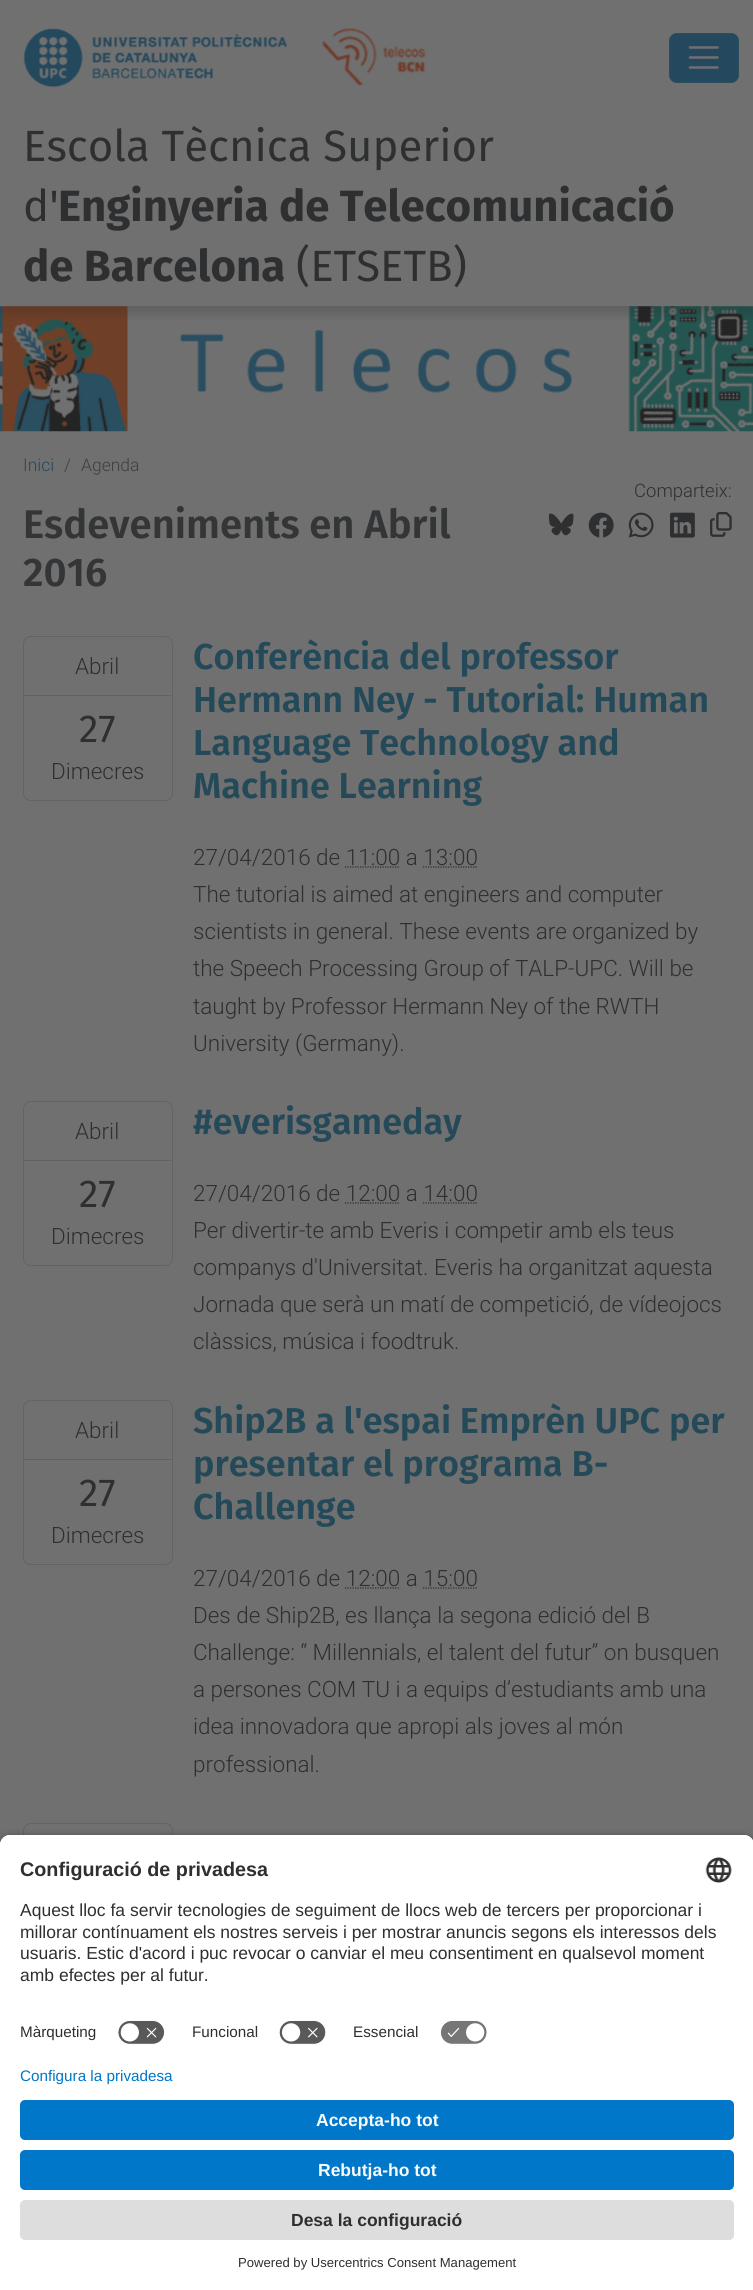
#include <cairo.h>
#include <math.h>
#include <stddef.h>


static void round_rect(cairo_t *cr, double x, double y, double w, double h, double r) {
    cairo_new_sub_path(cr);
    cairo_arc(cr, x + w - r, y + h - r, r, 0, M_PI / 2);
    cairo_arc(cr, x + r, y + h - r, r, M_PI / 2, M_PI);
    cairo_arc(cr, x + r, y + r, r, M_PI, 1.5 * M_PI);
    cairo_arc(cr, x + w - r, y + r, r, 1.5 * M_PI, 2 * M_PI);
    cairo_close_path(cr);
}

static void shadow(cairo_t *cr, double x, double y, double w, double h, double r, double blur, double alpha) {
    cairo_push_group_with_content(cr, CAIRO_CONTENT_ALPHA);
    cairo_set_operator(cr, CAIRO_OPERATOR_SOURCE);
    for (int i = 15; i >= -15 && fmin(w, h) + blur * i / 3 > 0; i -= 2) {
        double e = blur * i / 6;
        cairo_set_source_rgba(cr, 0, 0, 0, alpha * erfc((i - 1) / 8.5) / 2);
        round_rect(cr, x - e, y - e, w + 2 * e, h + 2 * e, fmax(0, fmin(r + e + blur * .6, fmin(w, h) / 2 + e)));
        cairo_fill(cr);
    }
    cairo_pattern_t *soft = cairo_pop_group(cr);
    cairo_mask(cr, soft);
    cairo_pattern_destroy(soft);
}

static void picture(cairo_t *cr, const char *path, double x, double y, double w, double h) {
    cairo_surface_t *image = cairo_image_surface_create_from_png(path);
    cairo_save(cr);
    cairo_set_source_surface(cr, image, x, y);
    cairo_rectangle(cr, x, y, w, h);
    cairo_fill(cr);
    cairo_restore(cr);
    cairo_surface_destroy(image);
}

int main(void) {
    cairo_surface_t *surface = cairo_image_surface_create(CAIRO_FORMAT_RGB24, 753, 2290);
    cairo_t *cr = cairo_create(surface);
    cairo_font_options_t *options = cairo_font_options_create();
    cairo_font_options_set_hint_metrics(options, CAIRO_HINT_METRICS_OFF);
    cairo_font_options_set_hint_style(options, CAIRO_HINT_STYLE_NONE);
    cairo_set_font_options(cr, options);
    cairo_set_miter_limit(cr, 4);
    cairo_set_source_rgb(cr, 0.439, 0.439, 0.439);
    cairo_paint(cr);
    picture(cr, "img1.png", 23, 28, 265, 60);
    picture(cr, "img2.png", 322, 28, 104, 58);
    cairo_set_source_rgb(cr, 0.141, 0.286, 0.369);
    round_rect(cr, 669, 33, 70, 50, 8);
    cairo_fill(cr);
    round_rect(cr, 669.5, 33.5, 69, 49, 7.5);
    cairo_set_source_rgba(cr, 0.439, 0.439, 0.439, 0.1);
    cairo_set_line_width(cr, 1);
    cairo_stroke(cr);
    cairo_new_path(cr);
    cairo_move_to(cr, 690, 47.5);
    cairo_line_to(cr, 717.5, 47.5);
    cairo_move_to(cr, 690, 57.5);
    cairo_line_to(cr, 717.5, 57.5);
    cairo_move_to(cr, 690, 67.5);
    cairo_line_to(cr, 717.5, 67.5);
    cairo_set_source_rgb(cr, 0.439, 0.439, 0.439);
    cairo_set_line_width(cr, 2.5);
    cairo_set_line_cap(cr, CAIRO_LINE_CAP_ROUND);
    cairo_stroke(cr);
    picture(cr, "img3.png", 0, 306, 753, 126);
    cairo_save(cr);
    cairo_rectangle(cr, 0, 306, 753, 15);
    cairo_clip(cr);
    cairo_set_source_rgb(cr, 0.141, 0.141, 0.141);
    shadow(cr, 0, 124, 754, 191, 0, 5, 0.2);
    cairo_restore(cr);
    cairo_select_font_face(cr, "Fira Sans", CAIRO_FONT_SLANT_NORMAL, CAIRO_FONT_WEIGHT_NORMAL);
    cairo_set_font_size(cr, 43.75);
    cairo_set_source_rgb(cr, 0.18, 0.184, 0.188);
    cairo_move_to(cr, 23, 161);
    cairo_show_text(cr, "Escola Tècnica Superior");
    cairo_move_to(cr, 23, 221);
    cairo_show_text(cr, "d'");
    cairo_select_font_face(cr, "Fira Sans", CAIRO_FONT_SLANT_NORMAL, CAIRO_FONT_WEIGHT_BOLD);
    cairo_move_to(cr, 58, 221);
    cairo_show_text(cr, "Enginyeria de Telecomunicació");
    cairo_move_to(cr, 23, 281);
    cairo_show_text(cr, "de Barcelona");
    cairo_select_font_face(cr, "Fira Sans", CAIRO_FONT_SLANT_NORMAL, CAIRO_FONT_WEIGHT_NORMAL);
    cairo_move_to(cr, 296, 281);
    cairo_show_text(cr, "(ETSETB)");
    cairo_select_font_face(cr, "Roboto Light", CAIRO_FONT_SLANT_NORMAL, CAIRO_FONT_WEIGHT_NORMAL);
    cairo_set_font_size(cr, 17.5);
    cairo_set_source_rgb(cr, 0.141, 0.286, 0.349);
    cairo_move_to(cr, 23, 471);
    cairo_show_text(cr, "Inici");
    cairo_set_source_rgb(cr, 0.243, 0.247, 0.251);
    cairo_move_to(cr, 64, 471);
    cairo_show_text(cr, "/");
    cairo_move_to(cr, 81, 471);
    cairo_show_text(cr, "Agenda");
    cairo_set_font_size(cr, 18.5);
    cairo_set_source_rgb(cr, 0.18, 0.184, 0.188);
    cairo_move_to(cr, 634, 497);
    cairo_show_text(cr, "Comparteix:");
    picture(cr, "img4.png", 548, 513, 26, 23);
    picture(cr, "img5.png", 588, 512, 26, 26);
    picture(cr, "img6.png", 628, 512, 26, 26);
    picture(cr, "img7.png", 670, 512, 25, 26);
    picture(cr, "img8.png", 710, 512, 22, 25);
    cairo_select_font_face(cr, "Fira Sans SemiBold", CAIRO_FONT_SLANT_NORMAL, CAIRO_FONT_WEIGHT_NORMAL);
    cairo_set_font_size(cr, 40);
    cairo_set_source_rgb(cr, 0.2, 0.208, 0.216);
    cairo_move_to(cr, 23, 538);
    cairo_show_text(cr, "Esdeveniments en Abril");
    cairo_move_to(cr, 23, 586);
    cairo_show_text(cr, "2016");
    round_rect(cr, 23.5, 636.5, 149, 164, 7.5);
    cairo_set_source_rgb(cr, 0.388, 0.388, 0.388);
    cairo_set_line_width(cr, 1);
    cairo_set_line_cap(cr, CAIRO_LINE_CAP_BUTT);
    cairo_stroke(cr);
    cairo_set_source_rgb(cr, 0.38, 0.38, 0.38);
    cairo_rectangle(cr, 24, 695, 147, 1);
    cairo_fill(cr);
    cairo_select_font_face(cr, "Roboto Light", CAIRO_FONT_SLANT_NORMAL, CAIRO_FONT_WEIGHT_NORMAL);
    cairo_set_font_size(cr, 22.5);
    cairo_set_source_rgb(cr, 0.18, 0.184, 0.188);
    cairo_move_to(cr, 75, 674);
    cairo_show_text(cr, "Abril");
    cairo_select_font_face(cr, "Fira Sans", CAIRO_FONT_SLANT_NORMAL, CAIRO_FONT_WEIGHT_NORMAL);
    cairo_set_font_size(cr, 39);
    cairo_move_to(cr, 79, 742);
    cairo_show_text(cr, "27");
    cairo_select_font_face(cr, "Roboto Light", CAIRO_FONT_SLANT_NORMAL, CAIRO_FONT_WEIGHT_NORMAL);
    cairo_set_font_size(cr, 22.5);
    cairo_move_to(cr, 51, 779);
    cairo_show_text(cr, "Dimecres");
    cairo_select_font_face(cr, "Fira Sans SemiBold", CAIRO_FONT_SLANT_NORMAL, CAIRO_FONT_WEIGHT_NORMAL);
    cairo_set_font_size(cr, 36);
    cairo_set_source_rgb(cr, 0.141, 0.286, 0.349);
    cairo_move_to(cr, 193, 669);
    cairo_show_text(cr, "Conferència del professor");
    cairo_move_to(cr, 193, 712);
    cairo_show_text(cr, "Hermann Ney - Tutorial: Human");
    cairo_move_to(cr, 193, 755);
    cairo_show_text(cr, "Language Technology and");
    cairo_move_to(cr, 193, 798);
    cairo_show_text(cr, "Machine Learning");
    cairo_select_font_face(cr, "Roboto Light", CAIRO_FONT_SLANT_NORMAL, CAIRO_FONT_WEIGHT_NORMAL);
    cairo_set_font_size(cr, 22.5);
    cairo_set_source_rgb(cr, 0.18, 0.184, 0.188);
    cairo_move_to(cr, 193, 865);
    cairo_show_text(cr, "27/04/2016 de 11:00 a 13:00");
    cairo_new_path(cr);
    cairo_move_to(cr, 345, 867);
    cairo_line_to(cr, 400, 867);
    cairo_set_line_width(cr, 1.2);
    cairo_set_dash(cr, (double[]){1.25, 1.25}, 2, 0);
    cairo_stroke(cr);
    cairo_new_path(cr);
    cairo_move_to(cr, 423, 867);
    cairo_line_to(cr, 477.5, 867);
    cairo_stroke(cr);
    cairo_move_to(cr, 193, 902);
    cairo_show_text(cr, "The tutorial is aimed at engineers and computer");
    cairo_move_to(cr, 193, 939);
    cairo_show_text(cr, "scientists in general. These events are organized by");
    cairo_move_to(cr, 193, 976);
    cairo_show_text(cr, "the Speech Processing Group of TALP-UPC. Will be");
    cairo_move_to(cr, 193, 1014);
    cairo_show_text(cr, "taught by Professor Hermann Ney of the RWTH");
    cairo_move_to(cr, 193, 1051);
    cairo_show_text(cr, "University (Germany).");
    round_rect(cr, 23.5, 1101.5, 149, 164, 7.5);
    cairo_set_source_rgb(cr, 0.388, 0.388, 0.388);
    cairo_set_line_width(cr, 1);
    cairo_set_dash(cr, NULL, 0, 0);
    cairo_stroke(cr);
    cairo_set_source_rgb(cr, 0.38, 0.38, 0.38);
    cairo_rectangle(cr, 24, 1160, 147, 1);
    cairo_fill(cr);
    cairo_set_source_rgb(cr, 0.18, 0.184, 0.188);
    cairo_move_to(cr, 75, 1139);
    cairo_show_text(cr, "Abril");
    cairo_select_font_face(cr, "Fira Sans", CAIRO_FONT_SLANT_NORMAL, CAIRO_FONT_WEIGHT_NORMAL);
    cairo_set_font_size(cr, 39);
    cairo_move_to(cr, 79, 1207);
    cairo_show_text(cr, "27");
    cairo_select_font_face(cr, "Roboto Light", CAIRO_FONT_SLANT_NORMAL, CAIRO_FONT_WEIGHT_NORMAL);
    cairo_set_font_size(cr, 22.5);
    cairo_move_to(cr, 51, 1244);
    cairo_show_text(cr, "Dimecres");
    cairo_select_font_face(cr, "Fira Sans SemiBold", CAIRO_FONT_SLANT_NORMAL, CAIRO_FONT_WEIGHT_NORMAL);
    cairo_set_font_size(cr, 36);
    cairo_set_source_rgb(cr, 0.141, 0.286, 0.349);
    cairo_move_to(cr, 193, 1134);
    cairo_show_text(cr, "#everisgameday");
    cairo_select_font_face(cr, "Roboto Light", CAIRO_FONT_SLANT_NORMAL, CAIRO_FONT_WEIGHT_NORMAL);
    cairo_set_font_size(cr, 22.5);
    cairo_set_source_rgb(cr, 0.18, 0.184, 0.188);
    cairo_move_to(cr, 193, 1201);
    cairo_show_text(cr, "27/04/2016 de 12:00 a 14:00");
    cairo_new_path(cr);
    cairo_move_to(cr, 345, 1203);
    cairo_line_to(cr, 400, 1203);
    cairo_set_line_width(cr, 1.2);
    cairo_set_dash(cr, (double[]){1.25, 1.25}, 2, 0);
    cairo_stroke(cr);
    cairo_new_path(cr);
    cairo_move_to(cr, 423, 1203);
    cairo_line_to(cr, 477.5, 1203);
    cairo_stroke(cr);
    cairo_move_to(cr, 193, 1238);
    cairo_show_text(cr, "Per divertir-te amb Everis i competir amb els teus");
    cairo_move_to(cr, 193, 1275);
    cairo_show_text(cr, "companys d'Universitat. Everis ha organitzat aquesta");
    cairo_move_to(cr, 193, 1312);
    cairo_show_text(cr, "Jornada que serà un matí de competició, de vídeojocs");
    cairo_move_to(cr, 193, 1349);
    cairo_show_text(cr, "clàssics, música i foodtruk.");
    round_rect(cr, 23.5, 1400.5, 149, 164, 7.5);
    cairo_set_source_rgb(cr, 0.388, 0.388, 0.388);
    cairo_set_line_width(cr, 1);
    cairo_set_dash(cr, NULL, 0, 0);
    cairo_stroke(cr);
    cairo_set_source_rgb(cr, 0.38, 0.38, 0.38);
    cairo_rectangle(cr, 24, 1459, 147, 1);
    cairo_fill(cr);
    cairo_set_source_rgb(cr, 0.18, 0.184, 0.188);
    cairo_move_to(cr, 75, 1438);
    cairo_show_text(cr, "Abril");
    cairo_select_font_face(cr, "Fira Sans", CAIRO_FONT_SLANT_NORMAL, CAIRO_FONT_WEIGHT_NORMAL);
    cairo_set_font_size(cr, 39);
    cairo_move_to(cr, 79, 1506);
    cairo_show_text(cr, "27");
    cairo_select_font_face(cr, "Roboto Light", CAIRO_FONT_SLANT_NORMAL, CAIRO_FONT_WEIGHT_NORMAL);
    cairo_set_font_size(cr, 22.5);
    cairo_move_to(cr, 51, 1543);
    cairo_show_text(cr, "Dimecres");
    cairo_select_font_face(cr, "Fira Sans SemiBold", CAIRO_FONT_SLANT_NORMAL, CAIRO_FONT_WEIGHT_NORMAL);
    cairo_set_font_size(cr, 36);
    cairo_set_source_rgb(cr, 0.141, 0.286, 0.349);
    cairo_move_to(cr, 193, 1433);
    cairo_show_text(cr, "Ship2B a l'espai Emprèn UPC per");
    cairo_move_to(cr, 193, 1476);
    cairo_show_text(cr, "presentar el programa B-");
    cairo_move_to(cr, 193, 1519);
    cairo_show_text(cr, "Challenge");
    cairo_select_font_face(cr, "Roboto Light", CAIRO_FONT_SLANT_NORMAL, CAIRO_FONT_WEIGHT_NORMAL);
    cairo_set_font_size(cr, 22.5);
    cairo_set_source_rgb(cr, 0.18, 0.184, 0.188);
    cairo_move_to(cr, 193, 1586);
    cairo_show_text(cr, "27/04/2016 de 12:00 a 15:00");
    cairo_new_path(cr);
    cairo_move_to(cr, 345, 1588);
    cairo_line_to(cr, 400, 1588);
    cairo_set_line_width(cr, 1.2);
    cairo_set_dash(cr, (double[]){1.25, 1.25}, 2, 0);
    cairo_stroke(cr);
    cairo_new_path(cr);
    cairo_move_to(cr, 423, 1588);
    cairo_line_to(cr, 477.5, 1588);
    cairo_stroke(cr);
    cairo_move_to(cr, 193, 1623);
    cairo_show_text(cr, "Des de Ship2B, es llança la segona edició del B");
    cairo_move_to(cr, 193, 1660);
    cairo_show_text(cr, "Challenge: “ Millennials, el talent del futur” on busquen");
    cairo_move_to(cr, 193, 1697);
    cairo_show_text(cr, "a persones COM TU i a equips d’estudiants amb una");
    cairo_move_to(cr, 193, 1734);
    cairo_show_text(cr, "idea innovadora que apropi als joves al món");
    cairo_move_to(cr, 193, 1772);
    cairo_show_text(cr, "professional.");
    round_rect(cr, 23.5, 1823.5, 149, 164, 7.5);
    cairo_set_source_rgb(cr, 0.388, 0.388, 0.388);
    cairo_set_line_width(cr, 1);
    cairo_set_dash(cr, NULL, 0, 0);
    cairo_stroke(cr);
    cairo_set_source_rgb(cr, 0, 0, 0);
    shadow(cr, 0, 1839, 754, 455, 10, 4.5, 0.8);
    cairo_set_source_rgb(cr, 1, 1, 1);
    cairo_new_path(cr);
    cairo_move_to(cr, 10, 1835);
    cairo_line_to(cr, 744, 1835);
    cairo_curve_to(cr, 749.5, 1835, 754, 1839.5, 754, 1845);
    cairo_line_to(cr, 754, 2068);
    cairo_line_to(cr, 0, 2068);
    cairo_line_to(cr, 0, 1845);
    cairo_curve_to(cr, 0, 1839.5, 4.5, 1835, 10, 1835);
    cairo_close_path(cr);
    cairo_fill(cr);
    cairo_new_path(cr);
    cairo_move_to(cr, 10, 1835);
    cairo_line_to(cr, 744, 1835);
    cairo_curve_to(cr, 749.5, 1835, 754, 1839.5, 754, 1845);
    cairo_line_to(cr, 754, 2013);
    cairo_line_to(cr, 0, 2013);
    cairo_line_to(cr, 0, 1845);
    cairo_curve_to(cr, 0, 1839.5, 4.5, 1835, 10, 1835);
    cairo_close_path(cr);
    cairo_fill(cr);
    cairo_select_font_face(cr, "Liberation Sans", CAIRO_FONT_SLANT_NORMAL, CAIRO_FONT_WEIGHT_BOLD);
    cairo_set_font_size(cr, 19.75);
    cairo_set_source_rgb(cr, 0.18, 0.184, 0.188);
    cairo_move_to(cr, 20, 1876);
    cairo_show_text(cr, "Configuració de privadesa");
    picture(cr, "img9.png", 705, 1857, 27, 26);
    cairo_select_font_face(cr, "Liberation Sans", CAIRO_FONT_SLANT_NORMAL, CAIRO_FONT_WEIGHT_NORMAL);
    cairo_set_font_size(cr, 17.5);
    cairo_move_to(cr, 20, 1916);
    cairo_show_text(cr, "Aquest lloc fa servir tecnologies de seguiment de llocs web de tercers per proporcionar i");
    cairo_move_to(cr, 20, 1938);
    cairo_show_text(cr, "millorar contínuament els nostres serveis i per mostrar anuncis segons els interessos dels");
    cairo_move_to(cr, 20, 1959);
    cairo_show_text(cr, "usuaris. Estic d'acord i puc revocar o canviar el meu consentiment en qualsevol moment");
    cairo_move_to(cr, 20, 1981);
    cairo_show_text(cr, "amb efectes per al futur.");
    cairo_set_font_size(cr, 15.25);
    cairo_move_to(cr, 20, 2037);
    cairo_show_text(cr, "Màrqueting");
    picture(cr, "img10.png", 117, 2020, 48, 25);
    cairo_move_to(cr, 192, 2037);
    cairo_show_text(cr, "Funcional");
    picture(cr, "img11.png", 279, 2020, 47, 25);
    cairo_move_to(cr, 353, 2037);
    cairo_show_text(cr, "Essencial");
    picture(cr, "img12.png", 440, 2020, 48, 25);
    cairo_set_source_rgb(cr, 1, 1, 1);
    cairo_rectangle(cr, 0, 2068, 753, 222);
    cairo_fill(cr);
    cairo_set_source_rgb(cr, 0, 0.467, 0.784);
    cairo_move_to(cr, 20, 2081);
    cairo_show_text(cr, "Configura la privadesa");
    round_rect(cr, 20, 2100, 714, 40, 5);
    cairo_fill(cr);
    cairo_select_font_face(cr, "Liberation Sans", CAIRO_FONT_SLANT_NORMAL, CAIRO_FONT_WEIGHT_BOLD);
    cairo_set_font_size(cr, 17.5);
    cairo_set_source_rgb(cr, 0.98, 0.98, 0.98);
    cairo_move_to(cr, 316, 2126);
    cairo_show_text(cr, "Accepta-ho tot");
    cairo_set_source_rgb(cr, 0, 0.467, 0.784);
    round_rect(cr, 20, 2150, 714, 40, 5);
    cairo_fill(cr);
    cairo_set_source_rgb(cr, 0.98, 0.98, 0.98);
    cairo_move_to(cr, 318, 2176);
    cairo_show_text(cr, "Rebutja-ho tot");
    cairo_set_source_rgb(cr, 0.867, 0.867, 0.867);
    round_rect(cr, 20, 2200, 714, 40, 5);
    cairo_fill(cr);
    cairo_set_source_rgb(cr, 0.18, 0.184, 0.188);
    cairo_move_to(cr, 291, 2226);
    cairo_show_text(cr, "Desa la configuració");
    cairo_select_font_face(cr, "Liberation Sans", CAIRO_FONT_SLANT_NORMAL, CAIRO_FONT_WEIGHT_NORMAL);
    cairo_set_font_size(cr, 13.1);
    cairo_move_to(cr, 238, 2267);
    cairo_show_text(cr, "Powered by Usercentrics Consent Management");
    cairo_surface_write_to_png(surface, "page.png");
    cairo_font_options_destroy(options);
    cairo_destroy(cr);
    cairo_surface_destroy(surface);
    return 0;
}
